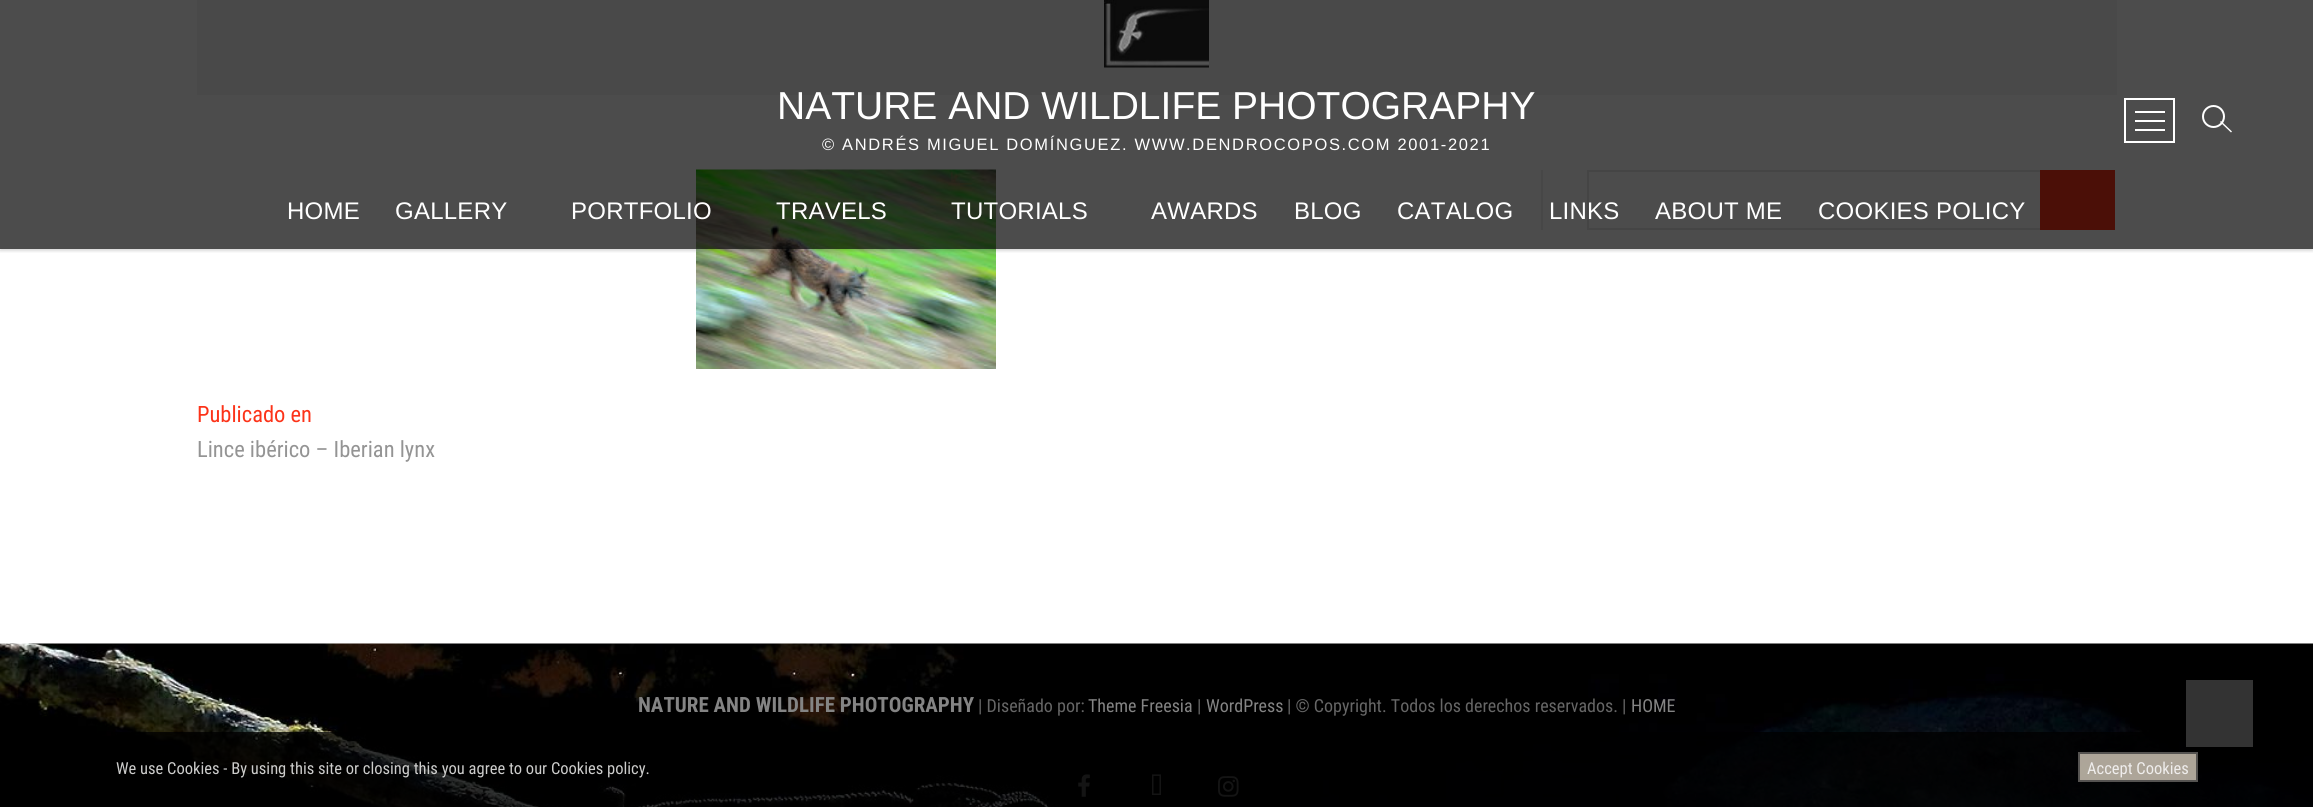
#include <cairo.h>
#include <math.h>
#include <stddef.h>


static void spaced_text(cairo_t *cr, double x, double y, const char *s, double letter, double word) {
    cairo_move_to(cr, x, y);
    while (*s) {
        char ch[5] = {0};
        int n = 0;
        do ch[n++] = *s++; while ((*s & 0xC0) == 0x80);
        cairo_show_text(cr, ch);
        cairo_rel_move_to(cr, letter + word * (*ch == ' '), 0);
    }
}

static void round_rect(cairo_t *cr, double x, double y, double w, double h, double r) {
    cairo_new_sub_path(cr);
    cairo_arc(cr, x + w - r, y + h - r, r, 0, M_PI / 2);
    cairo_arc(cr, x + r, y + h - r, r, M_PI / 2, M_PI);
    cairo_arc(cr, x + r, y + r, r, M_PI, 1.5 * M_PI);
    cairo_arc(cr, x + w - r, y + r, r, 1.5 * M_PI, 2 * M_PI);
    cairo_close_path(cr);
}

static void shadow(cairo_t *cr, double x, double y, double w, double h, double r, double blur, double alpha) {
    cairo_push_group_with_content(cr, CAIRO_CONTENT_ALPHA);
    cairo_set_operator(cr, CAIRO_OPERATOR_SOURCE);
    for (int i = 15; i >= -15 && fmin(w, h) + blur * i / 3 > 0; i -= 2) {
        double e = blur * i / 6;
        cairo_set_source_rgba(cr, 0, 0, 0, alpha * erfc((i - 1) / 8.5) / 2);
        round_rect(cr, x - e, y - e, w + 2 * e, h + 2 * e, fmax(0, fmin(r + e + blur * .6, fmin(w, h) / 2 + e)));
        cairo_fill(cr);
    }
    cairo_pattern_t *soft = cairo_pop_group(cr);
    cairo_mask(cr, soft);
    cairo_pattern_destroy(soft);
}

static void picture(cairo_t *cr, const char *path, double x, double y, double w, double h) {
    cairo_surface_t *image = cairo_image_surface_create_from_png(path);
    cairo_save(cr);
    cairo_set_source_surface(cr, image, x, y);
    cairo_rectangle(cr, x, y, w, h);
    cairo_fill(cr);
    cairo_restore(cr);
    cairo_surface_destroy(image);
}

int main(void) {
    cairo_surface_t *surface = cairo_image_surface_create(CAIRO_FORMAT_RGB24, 2313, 807);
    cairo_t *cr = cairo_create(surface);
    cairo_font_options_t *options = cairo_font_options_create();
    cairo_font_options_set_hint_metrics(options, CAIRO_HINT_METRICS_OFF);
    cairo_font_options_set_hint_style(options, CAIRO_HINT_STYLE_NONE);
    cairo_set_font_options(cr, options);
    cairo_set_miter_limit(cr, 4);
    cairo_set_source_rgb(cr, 1, 1, 1);
    cairo_paint(cr);
    cairo_set_source_rgb(cr, 0.957, 0.957, 0.957);
    cairo_rectangle(cr, 197, 0, 1920, 95);
    cairo_fill(cr);
    cairo_set_source_rgb(cr, 0.933, 0.933, 0.933);
    cairo_rectangle(cr, 1541, 170, 2, 60);
    cairo_fill(cr);
    cairo_rectangle(cr, 1588, 171, 453, 58);
    cairo_set_source_rgb(cr, 0.902, 0.902, 0.902);
    cairo_stroke(cr);
    cairo_set_source_rgb(cr, 0.988, 0.2, 0.098);
    cairo_rectangle(cr, 2040, 170, 75, 60);
    cairo_fill(cr);
    picture(cr, "img2.png", 696, 169, 300, 200);
    cairo_save(cr);
    cairo_rectangle(cr, 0, 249, 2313, 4);
    cairo_clip(cr);
    cairo_set_source_rgb(cr, 0, 0, 0);
    shadow(cr, 0, 2, 2313, 249, 0, 1.5, 0.15);
    cairo_restore(cr);
    cairo_set_source_rgba(cr, 0, 0, 0, 0.7);
    cairo_rectangle(cr, 0, 0, 2313, 249);
    cairo_fill(cr);
    picture(cr, "img1.png", 1104, 0, 105, 68);
    cairo_select_font_face(cr, "Liberation Sans", CAIRO_FONT_SLANT_NORMAL, CAIRO_FONT_WEIGHT_NORMAL);
    cairo_set_font_size(cr, 39);
    cairo_set_source_rgb(cr, 1, 1, 1);
    cairo_move_to(cr, 777, 119);
    cairo_show_text(cr, "NATURE AND WILDLIFE PHOTOGRAPHY");
    cairo_set_font_size(cr, 16.5);
    spaced_text(cr, 822, 150, "© ANDRÉS MIGUEL DOMÍNGUEZ. WWW.DENDROCOPOS.COM 2001-2021", 1.65, 0);
    cairo_rectangle(cr, 2125, 99, 49, 43);
    cairo_stroke(cr);
    cairo_rectangle(cr, 2135, 120, 30, 2);
    cairo_fill(cr);
    cairo_rectangle(cr, 2135, 111, 30, 2);
    cairo_fill(cr);
    cairo_rectangle(cr, 2135, 129, 30, 2);
    cairo_fill(cr);
    cairo_arc(cr, 2213.5, 116.5, 10.5, 0, 2 * M_PI);
    cairo_stroke(cr);
    cairo_new_path(cr);
    cairo_move_to(cr, 2220, 122);
    cairo_line_to(cr, 2221, 121);
    cairo_line_to(cr, 2232, 131.5);
    cairo_line_to(cr, 2231, 132.5);
    cairo_close_path(cr);
    cairo_fill(cr);
    cairo_set_font_size(cr, 24);
    spaced_text(cr, 287, 219, "HOME", 0.25, 0);
    spaced_text(cr, 395, 219, "GALLERY", 0.25, 0);
    spaced_text(cr, 571, 219, "PORTFOLIO", 0.25, 0);
    spaced_text(cr, 776, 219, "TRAVELS", 0.25, 0);
    spaced_text(cr, 951, 219, "TUTORIALS", 0.25, 0);
    spaced_text(cr, 1151, 219, "AWARDS", 0.25, 0);
    spaced_text(cr, 1294, 219, "BLOG", 0.25, 0);
    spaced_text(cr, 1397, 219, "CATALOG", 0.25, 0);
    spaced_text(cr, 1549, 219, "LINKS", 0.25, 0);
    spaced_text(cr, 1655, 219, "ABOUT ME", 0.25, 0);
    spaced_text(cr, 1818, 219, "COOKIES POLICY", 0.25, 0);
    cairo_select_font_face(cr, "Roboto Condensed", CAIRO_FONT_SLANT_NORMAL, CAIRO_FONT_WEIGHT_NORMAL);
    cairo_set_font_size(cr, 22.5);
    cairo_set_source_rgb(cr, 0.988, 0.2, 0.098);
    cairo_move_to(cr, 197, 422);
    cairo_show_text(cr, "Publicado en");
    cairo_set_source_rgb(cr, 0.58, 0.58, 0.58);
    cairo_move_to(cr, 197, 457);
    cairo_show_text(cr, "Lince ibérico – Iberian lynx");
    picture(cr, "img3.png", 0, 643, 2313, 164);
    cairo_select_font_face(cr, "Roboto Condensed", CAIRO_FONT_SLANT_NORMAL, CAIRO_FONT_WEIGHT_BOLD);
    cairo_set_font_size(cr, 21);
    cairo_set_source_rgb(cr, 0.518, 0.518, 0.518);
    cairo_move_to(cr, 638, 712);
    cairo_show_text(cr, "NATURE AND WILDLIFE PHOTOGRAPHY");
    cairo_select_font_face(cr, "Roboto Condensed", CAIRO_FONT_SLANT_NORMAL, CAIRO_FONT_WEIGHT_NORMAL);
    cairo_set_font_size(cr, 18);
    cairo_set_source_rgb(cr, 0.4, 0.4, 0.4);
    cairo_move_to(cr, 978, 712);
    cairo_show_text(cr, "| Diseñado por:");
    cairo_set_source_rgb(cr, 0.518, 0.518, 0.518);
    cairo_move_to(cr, 1088, 712);
    cairo_show_text(cr, "Theme Freesia");
    cairo_set_source_rgb(cr, 0.4, 0.4, 0.4);
    cairo_move_to(cr, 1197, 712);
    cairo_show_text(cr, "|");
    cairo_set_source_rgb(cr, 0.518, 0.518, 0.518);
    cairo_move_to(cr, 1206, 712);
    cairo_show_text(cr, "WordPress");
    cairo_set_source_rgb(cr, 0.4, 0.4, 0.4);
    cairo_move_to(cr, 1287, 712);
    cairo_show_text(cr, "| © Copyright. Todos los derechos reservados. |");
    cairo_set_source_rgb(cr, 0.518, 0.518, 0.518);
    cairo_move_to(cr, 1631, 712);
    cairo_show_text(cr, "HOME");
    picture(cr, "img4.png", 1078, 774, 12, 23);
    picture(cr, "img5.png", 1152, 774, 9, 21);
    picture(cr, "img6.png", 1218, 776, 21, 21);
    cairo_set_source_rgba(cr, 0, 0, 0, 0.8);
    cairo_rectangle(cr, 111, 732, 2202, 75);
    cairo_fill(cr);
    cairo_set_source_rgb(cr, 0.2, 0.2, 0.2);
    cairo_rectangle(cr, 2186, 680, 67, 67);
    cairo_fill(cr);
    cairo_set_font_size(cr, 16.5);
    cairo_set_source_rgb(cr, 0.804, 0.804, 0.8);
    cairo_move_to(cr, 116, 774);
    cairo_show_text(cr, "We use Cookies - By using this site or closing this you agree to our Cookies policy.");
    cairo_set_source_rgba(cr, 0.847, 0.808, 0.745, 0.8);
    cairo_rectangle(cr, 2079, 753, 118, 28);
    cairo_fill_preserve(cr);
    cairo_set_source_rgb(cr, 0.333, 0.325, 0.318);
    cairo_stroke(cr);
    cairo_set_source_rgb(cr, 0.937, 0.929, 0.922);
    cairo_move_to(cr, 2087, 774);
    cairo_show_text(cr, "Accept Cookies");
    cairo_surface_write_to_png(surface, "page.png");
    cairo_font_options_destroy(options);
    cairo_destroy(cr);
    cairo_surface_destroy(surface);
    return 0;
}
